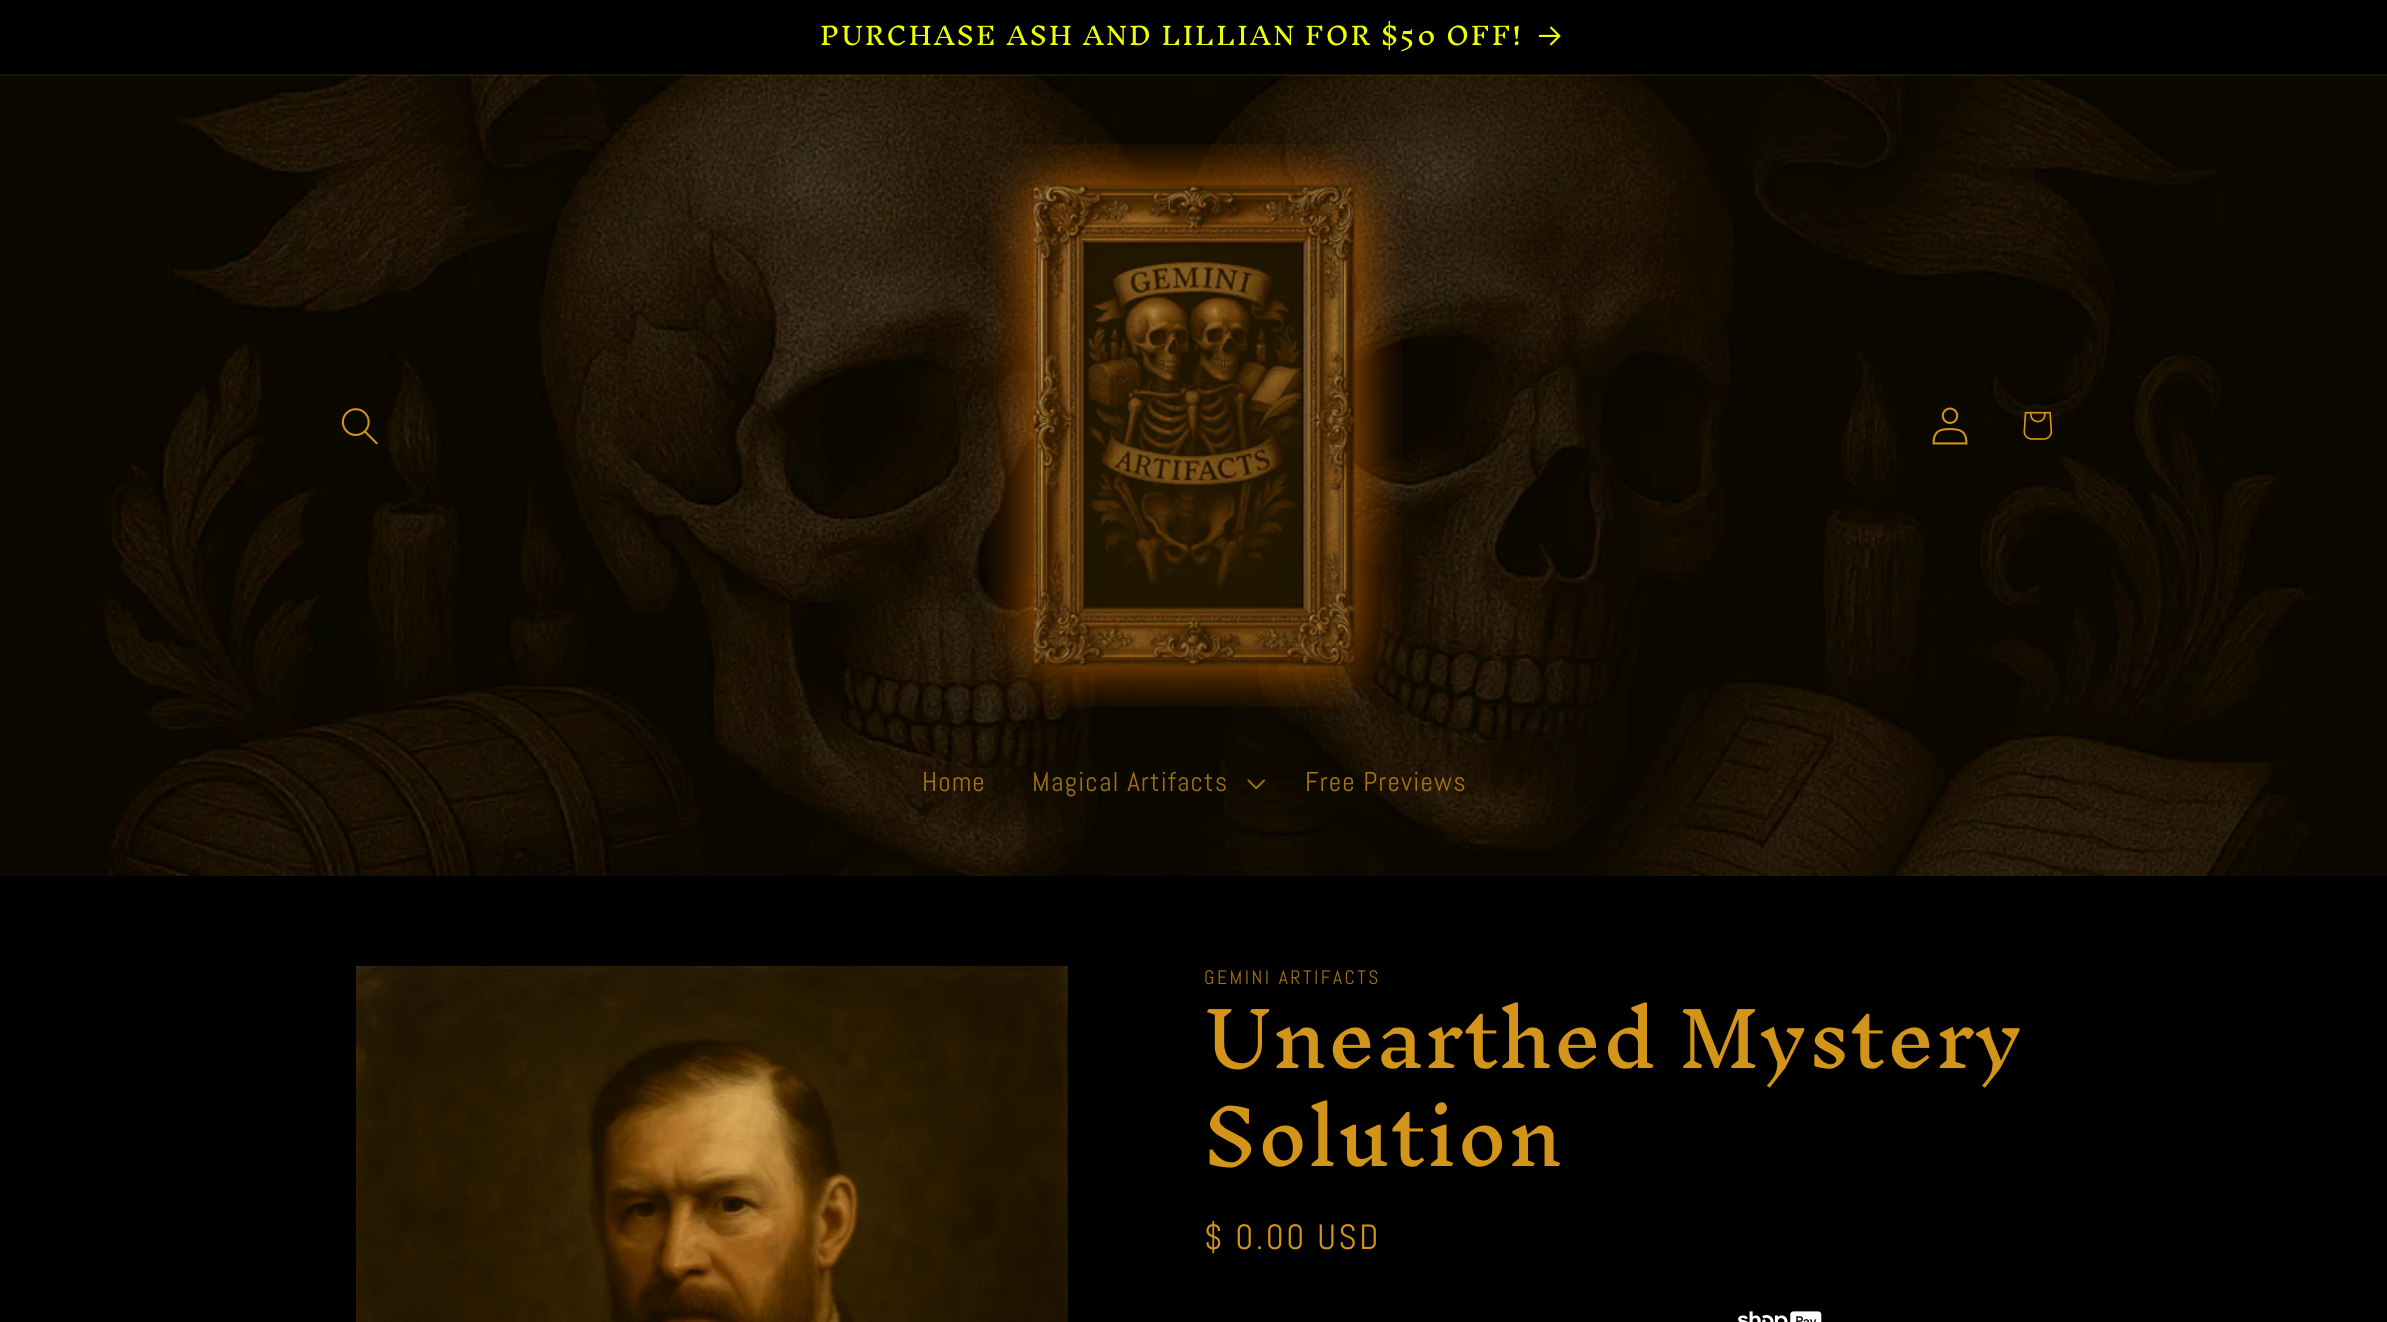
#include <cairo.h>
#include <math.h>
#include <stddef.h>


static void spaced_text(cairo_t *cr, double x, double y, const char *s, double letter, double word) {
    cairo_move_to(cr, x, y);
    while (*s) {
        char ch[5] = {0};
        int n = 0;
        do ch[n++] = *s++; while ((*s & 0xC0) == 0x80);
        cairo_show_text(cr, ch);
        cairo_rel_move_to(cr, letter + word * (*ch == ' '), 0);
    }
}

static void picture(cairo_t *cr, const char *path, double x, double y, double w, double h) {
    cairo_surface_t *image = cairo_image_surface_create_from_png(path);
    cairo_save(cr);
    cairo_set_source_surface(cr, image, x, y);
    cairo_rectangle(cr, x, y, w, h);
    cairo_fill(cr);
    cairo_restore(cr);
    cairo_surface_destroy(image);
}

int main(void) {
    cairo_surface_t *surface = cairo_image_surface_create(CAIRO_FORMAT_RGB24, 2387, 1322);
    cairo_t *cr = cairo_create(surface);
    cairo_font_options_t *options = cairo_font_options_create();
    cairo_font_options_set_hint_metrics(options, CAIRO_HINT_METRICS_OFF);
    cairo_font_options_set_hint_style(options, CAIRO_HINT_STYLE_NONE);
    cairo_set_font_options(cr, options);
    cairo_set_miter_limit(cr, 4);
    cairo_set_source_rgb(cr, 0, 0, 0);
    cairo_paint(cr);
    picture(cr, "img2.png", 0, 75, 2387, 801);
    cairo_set_source_rgba(cr, 0.937, 1, 0.016, 0.08);
    cairo_rectangle(cr, 0, 74, 2387, 2);
    cairo_fill(cr);
    cairo_select_font_face(cr, "Inknut Antiqua", CAIRO_FONT_SLANT_NORMAL, CAIRO_FONT_WEIGHT_NORMAL);
    cairo_set_font_size(cr, 24.4);
    cairo_set_source_rgb(cr, 0.937, 1, 0.016);
    spaced_text(cr, 820, 45, "PURCHASE ASH AND LILLIAN FOR $50 OFF!", 1.95, 0);
    picture(cr, "img1.png", 1539, 26, 22, 20);
    picture(cr, "img3.png", 341, 408, 37, 37);
    picture(cr, "img4.png", 986, 144, 416, 563);
    picture(cr, "img5.png", 1932, 407, 36, 38);
    picture(cr, "img6.png", 2023, 411, 30, 29);
    cairo_select_font_face(cr, "Abel", CAIRO_FONT_SLANT_NORMAL, CAIRO_FONT_WEIGHT_NORMAL);
    cairo_set_font_size(cr, 27.25);
    cairo_set_source_rgb(cr, 0.647, 0.451, 0.075);
    spaced_text(cr, 922, 791, "Home", 1.2, 0);
    cairo_set_source_rgb(cr, 0.62, 0.435, 0.075);
    spaced_text(cr, 1032, 791, "Magical Artifacts", 1.2, 0);
    picture(cr, "img7.png", 1247, 779, 18, 11);
    cairo_set_source_rgb(cr, 0.647, 0.451, 0.075);
    spaced_text(cr, 1305, 791, "Free Previews", 1.2, 0);
    picture(cr, "img8.png", 356, 966, 712, 356);
    cairo_set_font_size(cr, 19.5);
    cairo_set_source_rgb(cr, 0.62, 0.435, 0.075);
    spaced_text(cr, 1204, 984, "GEMINI ARTIFACTS", 2.5, 0);
    cairo_select_font_face(cr, "Inknut Antiqua", CAIRO_FONT_SLANT_NORMAL, CAIRO_FONT_WEIGHT_NORMAL);
    cairo_set_font_size(cr, 75);
    cairo_set_source_rgb(cr, 0.824, 0.58, 0.098);
    spaced_text(cr, 1204, 1068, "Unearthed Mystery", 1.1, 0);
    spaced_text(cr, 1204, 1166, "Solution", 1.1, 0);
    cairo_select_font_face(cr, "Abel", CAIRO_FONT_SLANT_NORMAL, CAIRO_FONT_WEIGHT_NORMAL);
    cairo_set_font_size(cr, 35);
    spaced_text(cr, 1204, 1249, "$ 0.00 USD", 2.5, 0);
    picture(cr, "img9.png", 1738, 1311, 84, 11);
    cairo_surface_write_to_png(surface, "page.png");
    cairo_font_options_destroy(options);
    cairo_destroy(cr);
    cairo_surface_destroy(surface);
    return 0;
}
